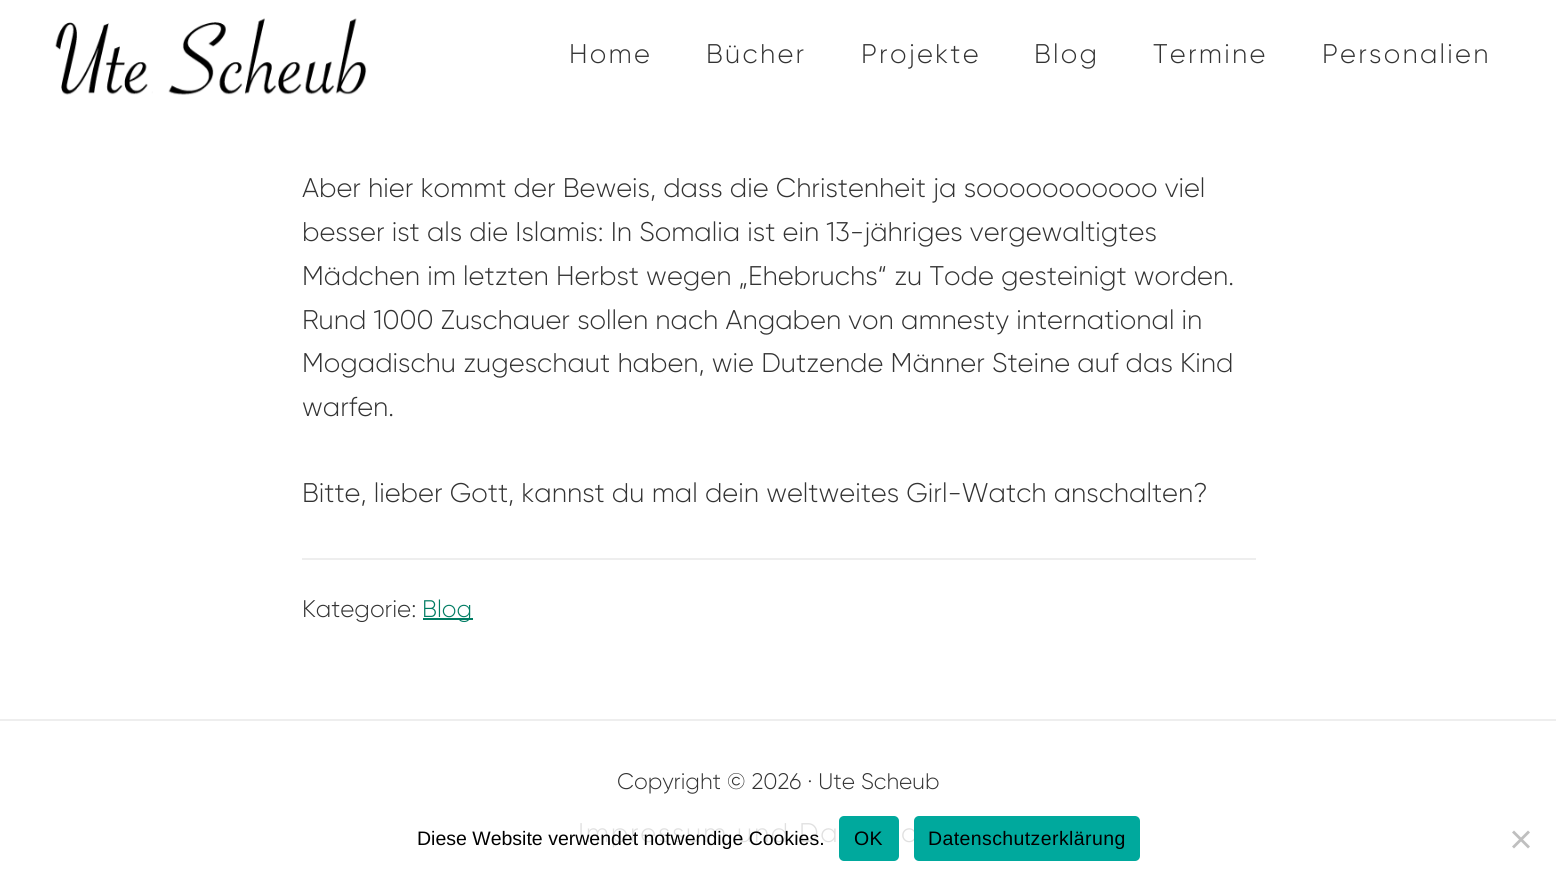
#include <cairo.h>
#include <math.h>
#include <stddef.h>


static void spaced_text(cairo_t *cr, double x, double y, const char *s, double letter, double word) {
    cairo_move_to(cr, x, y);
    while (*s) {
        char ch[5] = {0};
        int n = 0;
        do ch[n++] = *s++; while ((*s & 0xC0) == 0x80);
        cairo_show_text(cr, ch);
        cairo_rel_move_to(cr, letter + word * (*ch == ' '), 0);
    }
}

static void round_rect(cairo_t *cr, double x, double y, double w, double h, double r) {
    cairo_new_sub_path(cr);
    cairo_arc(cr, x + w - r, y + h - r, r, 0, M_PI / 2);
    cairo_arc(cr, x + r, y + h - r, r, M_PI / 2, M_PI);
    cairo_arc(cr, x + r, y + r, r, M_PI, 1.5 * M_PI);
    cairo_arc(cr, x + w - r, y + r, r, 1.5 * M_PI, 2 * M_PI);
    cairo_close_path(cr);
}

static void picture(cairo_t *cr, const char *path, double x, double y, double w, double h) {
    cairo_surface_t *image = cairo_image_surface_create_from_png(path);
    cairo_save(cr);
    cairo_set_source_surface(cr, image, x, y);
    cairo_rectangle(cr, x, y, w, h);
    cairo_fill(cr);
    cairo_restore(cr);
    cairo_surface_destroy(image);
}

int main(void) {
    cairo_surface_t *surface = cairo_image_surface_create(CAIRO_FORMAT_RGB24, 1556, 885);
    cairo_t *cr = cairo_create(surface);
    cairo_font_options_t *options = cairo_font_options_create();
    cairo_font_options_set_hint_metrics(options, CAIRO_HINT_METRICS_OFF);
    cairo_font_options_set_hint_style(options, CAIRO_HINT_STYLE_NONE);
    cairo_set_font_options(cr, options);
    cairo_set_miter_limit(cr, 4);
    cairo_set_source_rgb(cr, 1, 1, 1);
    cairo_paint(cr);
    picture(cr, "img1.png", 55, 18, 312, 77);
    cairo_select_font_face(cr, "Gilroy Light", CAIRO_FONT_SLANT_NORMAL, CAIRO_FONT_WEIGHT_NORMAL);
    cairo_set_font_size(cr, 27);
    cairo_set_source_rgb(cr, 0.2, 0.2, 0.2);
    spaced_text(cr, 569, 63, "Home", 2.25, 0);
    spaced_text(cr, 706, 63, "Bücher", 2.25, 0);
    spaced_text(cr, 861, 63, "Projekte", 2.25, 0);
    spaced_text(cr, 1034, 63, "Blog", 2.25, 0);
    spaced_text(cr, 1153, 63, "Termine", 2.25, 0);
    spaced_text(cr, 1322, 63, "Personalien", 2.25, 0);
    cairo_move_to(cr, 302, 197);
    cairo_show_text(cr, "Aber hier kommt der Beweis, dass die Christenheit ja sooooooooooo viel");
    cairo_move_to(cr, 302, 241);
    cairo_show_text(cr, "besser ist als die Islamis: In Somalia ist ein 13-jähriges vergewaltigtes");
    cairo_move_to(cr, 302, 285);
    cairo_show_text(cr, "Mädchen im letzten Herbst wegen „Ehebruchs“ zu Tode gesteinigt worden.");
    cairo_move_to(cr, 302, 329);
    cairo_show_text(cr, "Rund 1000 Zuschauer sollen nach Angaben von amnesty international in");
    cairo_move_to(cr, 302, 372);
    cairo_show_text(cr, "Mogadischu zugeschaut haben, wie Dutzende Männer Steine auf das Kind");
    cairo_move_to(cr, 302, 416);
    cairo_show_text(cr, "warfen.");
    cairo_move_to(cr, 302, 502);
    cairo_show_text(cr, "Bitte, lieber Gott, kannst du mal dein weltweites Girl-Watch anschalten?");
    cairo_set_source_rgb(cr, 0.933, 0.933, 0.933);
    cairo_rectangle(cr, 302, 558, 954, 2);
    cairo_fill(cr);
    cairo_set_font_size(cr, 24);
    cairo_set_source_rgb(cr, 0.2, 0.2, 0.2);
    cairo_move_to(cr, 302, 617);
    cairo_show_text(cr, "Kategorie:");
    cairo_set_source_rgb(cr, 0, 0.486, 0.388);
    cairo_rectangle(cr, 423, 618, 50, 2);
    cairo_fill(cr);
    cairo_move_to(cr, 422, 617);
    cairo_show_text(cr, "Blog");
    cairo_set_source_rgb(cr, 0.933, 0.933, 0.933);
    cairo_rectangle(cr, 0, 719, 1556, 2);
    cairo_fill(cr);
    cairo_set_font_size(cr, 22.5);
    cairo_set_source_rgb(cr, 0.2, 0.2, 0.2);
    cairo_move_to(cr, 617, 789);
    cairo_show_text(cr, "Copyright © 2026 · Ute Scheub");
    cairo_set_font_size(cr, 27);
    cairo_set_source_rgb(cr, 0.878, 0.878, 0.878);
    spaced_text(cr, 578, 842, "Impressum und Da", 1.75, 0);
    spaced_text(cr, 901, 842, "c", 1.75, 0);
    cairo_select_font_face(cr, "Liberation Sans", CAIRO_FONT_SLANT_NORMAL, CAIRO_FONT_WEIGHT_NORMAL);
    cairo_set_font_size(cr, 19.5);
    cairo_set_source_rgb(cr, 0, 0, 0);
    cairo_move_to(cr, 417, 845);
    cairo_show_text(cr, "Diese Website verwendet notwendige Cookies.");
    cairo_set_source_rgb(cr, 0, 0.663, 0.616);
    round_rect(cr, 839, 816, 60, 45, 5);
    cairo_fill(cr);
    cairo_set_source_rgb(cr, 0, 0, 0);
    spaced_text(cr, 854, 845, "OK", 0.4, 0);
    cairo_set_source_rgb(cr, 0, 0.663, 0.616);
    round_rect(cr, 914, 816, 226, 45, 5);
    cairo_fill(cr);
    cairo_set_source_rgb(cr, 0, 0, 0);
    spaced_text(cr, 928, 845, "Datenschutzerklärung", 0.4, 0);
    cairo_set_source_rgb(cr, 0.749, 0.749, 0.749);
    cairo_new_path(cr);
    cairo_move_to(cr, 1528, 830.5);
    cairo_line_to(cr, 1530, 832.5);
    cairo_line_to(cr, 1514, 848.5);
    cairo_line_to(cr, 1512, 846.5);
    cairo_close_path(cr);
    cairo_fill(cr);
    cairo_new_path(cr);
    cairo_move_to(cr, 1512, 832.5);
    cairo_line_to(cr, 1514, 830.5);
    cairo_line_to(cr, 1530, 846.5);
    cairo_line_to(cr, 1528, 848.5);
    cairo_close_path(cr);
    cairo_fill(cr);
    cairo_surface_write_to_png(surface, "page.png");
    cairo_font_options_destroy(options);
    cairo_destroy(cr);
    cairo_surface_destroy(surface);
    return 0;
}
